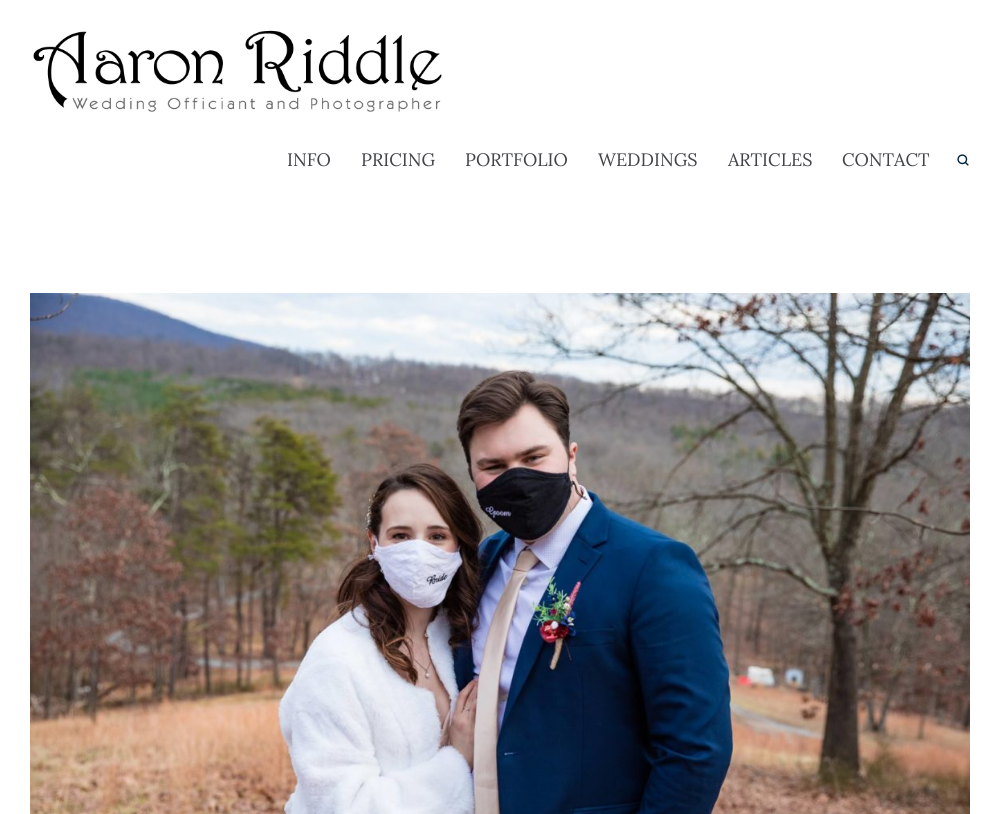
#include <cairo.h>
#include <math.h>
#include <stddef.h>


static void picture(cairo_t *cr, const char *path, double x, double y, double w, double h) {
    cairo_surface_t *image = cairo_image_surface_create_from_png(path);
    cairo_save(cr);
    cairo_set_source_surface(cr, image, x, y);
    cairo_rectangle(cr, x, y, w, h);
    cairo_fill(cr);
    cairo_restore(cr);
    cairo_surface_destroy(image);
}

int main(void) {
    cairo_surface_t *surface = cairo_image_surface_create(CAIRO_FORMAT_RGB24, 999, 814);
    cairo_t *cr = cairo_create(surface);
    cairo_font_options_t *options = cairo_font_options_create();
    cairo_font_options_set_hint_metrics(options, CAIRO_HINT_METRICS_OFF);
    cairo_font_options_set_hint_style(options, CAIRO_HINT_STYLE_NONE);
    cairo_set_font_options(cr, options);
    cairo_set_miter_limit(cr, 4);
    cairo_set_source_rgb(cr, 1, 1, 1);
    cairo_paint(cr);
    picture(cr, "img1.png", 33, 30, 409, 82);
    cairo_select_font_face(cr, "Lora", CAIRO_FONT_SLANT_NORMAL, CAIRO_FONT_WEIGHT_NORMAL);
    cairo_set_font_size(cr, 18);
    cairo_set_source_rgb(cr, 0.263, 0.267, 0.286);
    cairo_move_to(cr, 287, 166);
    cairo_show_text(cr, "INFO");
    cairo_move_to(cr, 361, 166);
    cairo_show_text(cr, "PRICING");
    cairo_move_to(cr, 465, 166);
    cairo_show_text(cr, "PORTFOLIO");
    cairo_move_to(cr, 598, 166);
    cairo_show_text(cr, "WEDDINGS");
    cairo_move_to(cr, 728, 166);
    cairo_show_text(cr, "ARTICLES");
    cairo_move_to(cr, 842, 166);
    cairo_show_text(cr, "CONTACT");
    picture(cr, "img2.png", 957, 154, 12, 12);
    picture(cr, "img3.png", 30, 293, 940, 521);
    cairo_surface_write_to_png(surface, "page.png");
    cairo_font_options_destroy(options);
    cairo_destroy(cr);
    cairo_surface_destroy(surface);
    return 0;
}
